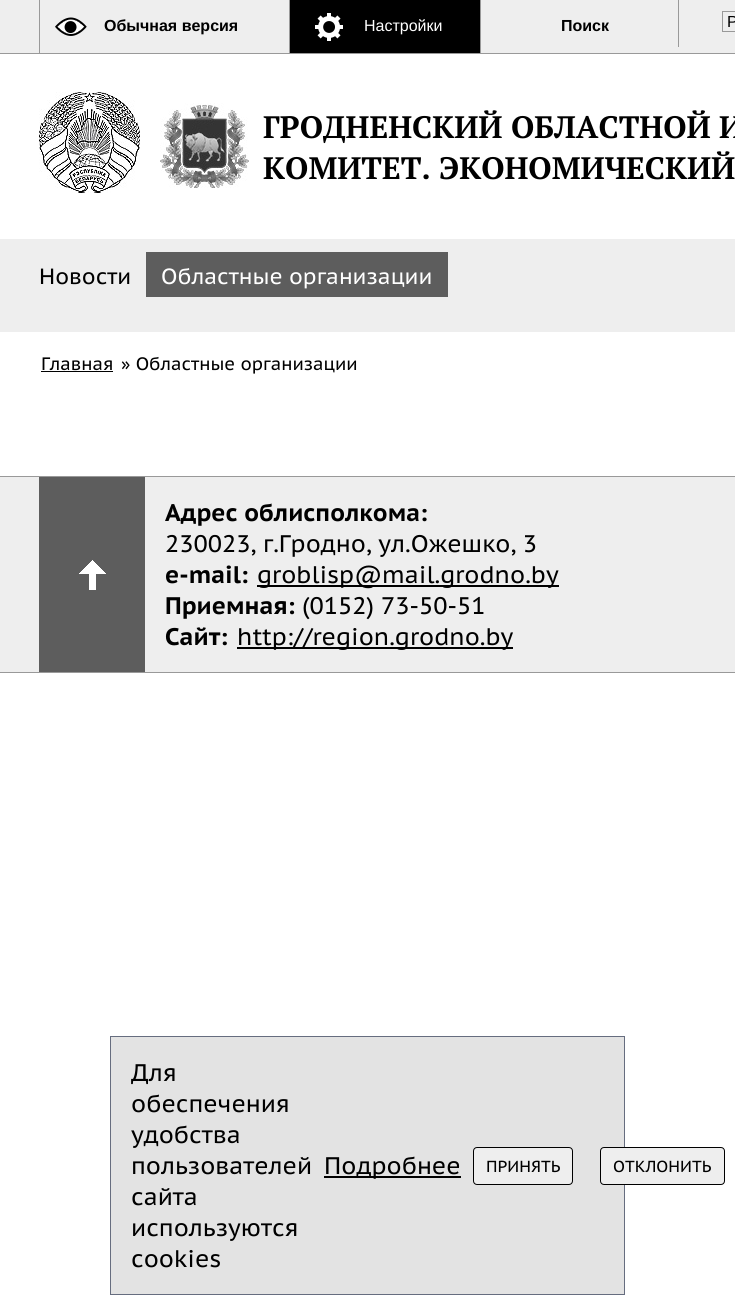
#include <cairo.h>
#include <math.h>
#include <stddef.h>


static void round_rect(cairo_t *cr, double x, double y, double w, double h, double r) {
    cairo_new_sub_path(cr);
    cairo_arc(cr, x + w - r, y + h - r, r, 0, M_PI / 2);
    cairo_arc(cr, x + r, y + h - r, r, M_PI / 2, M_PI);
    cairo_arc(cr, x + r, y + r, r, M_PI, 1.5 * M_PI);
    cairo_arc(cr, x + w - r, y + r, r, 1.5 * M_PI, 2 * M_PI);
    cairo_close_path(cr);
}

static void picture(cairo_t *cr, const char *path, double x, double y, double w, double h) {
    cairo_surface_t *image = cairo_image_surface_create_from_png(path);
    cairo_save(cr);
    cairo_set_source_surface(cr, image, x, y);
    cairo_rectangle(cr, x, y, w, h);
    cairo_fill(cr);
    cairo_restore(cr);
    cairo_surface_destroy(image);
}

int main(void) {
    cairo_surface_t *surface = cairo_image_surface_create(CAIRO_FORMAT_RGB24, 735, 1298);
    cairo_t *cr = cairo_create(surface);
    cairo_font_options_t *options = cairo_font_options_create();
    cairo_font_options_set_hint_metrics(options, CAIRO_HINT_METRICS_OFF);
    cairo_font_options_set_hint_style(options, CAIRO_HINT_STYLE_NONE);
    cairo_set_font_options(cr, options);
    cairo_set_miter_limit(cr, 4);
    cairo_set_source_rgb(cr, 1, 1, 1);
    cairo_paint(cr);
    cairo_set_source_rgb(cr, 0.933, 0.933, 0.933);
    cairo_rectangle(cr, 0, 0, 735, 53);
    cairo_fill(cr);
    cairo_set_source_rgb(cr, 0.6, 0.6, 0.6);
    cairo_rectangle(cr, 0, 53, 735, 1);
    cairo_fill(cr);
    picture(cr, "img1.png", 55, 17, 32, 19);
    cairo_rectangle(cr, 39, 0, 1, 53);
    cairo_fill(cr);
    cairo_select_font_face(cr, "Liberation Sans", CAIRO_FONT_SLANT_NORMAL, CAIRO_FONT_WEIGHT_BOLD);
    cairo_set_font_size(cr, 16);
    cairo_set_source_rgb(cr, 0, 0, 0);
    cairo_move_to(cr, 104, 31);
    cairo_show_text(cr, "Обычная версия");
    cairo_rectangle(cr, 290, 0, 190, 53);
    cairo_fill(cr);
    picture(cr, "img2.png", 315, 13, 28, 28);
    cairo_set_source_rgb(cr, 0.6, 0.6, 0.6);
    cairo_rectangle(cr, 289, 0, 1, 53);
    cairo_fill(cr);
    cairo_select_font_face(cr, "Liberation Sans", CAIRO_FONT_SLANT_NORMAL, CAIRO_FONT_WEIGHT_NORMAL);
    cairo_set_source_rgb(cr, 1, 1, 1);
    cairo_move_to(cr, 364, 31);
    cairo_show_text(cr, "Настройки");
    cairo_set_source_rgb(cr, 0.6, 0.6, 0.6);
    cairo_rectangle(cr, 480, 0, 1, 53);
    cairo_fill(cr);
    cairo_select_font_face(cr, "Liberation Sans", CAIRO_FONT_SLANT_NORMAL, CAIRO_FONT_WEIGHT_BOLD);
    cairo_set_source_rgb(cr, 0, 0, 0);
    cairo_move_to(cr, 561, 31);
    cairo_show_text(cr, "Поиск");
    cairo_set_source_rgb(cr, 0.6, 0.6, 0.6);
    cairo_rectangle(cr, 678, 0, 1, 47);
    cairo_fill(cr);
    cairo_rectangle(cr, 722.5, 11.5, 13, 20);
    cairo_set_line_width(cr, 1);
    cairo_stroke(cr);
    cairo_select_font_face(cr, "Liberation Sans", CAIRO_FONT_SLANT_NORMAL, CAIRO_FONT_WEIGHT_NORMAL);
    cairo_set_source_rgb(cr, 0, 0, 0);
    cairo_move_to(cr, 727, 27);
    cairo_show_text(cr, "Р");
    picture(cr, "img3.png", 39, 92, 101, 101);
    picture(cr, "img4.png", 160, 103, 89, 85);
    cairo_select_font_face(cr, "PT Serif", CAIRO_FONT_SLANT_NORMAL, CAIRO_FONT_WEIGHT_BOLD);
    cairo_set_font_size(cr, 31);
    cairo_move_to(cr, 263, 138);
    cairo_show_text(cr, "ГРОДНЕНСКИЙ ОБЛАСТНОЙ И");
    cairo_move_to(cr, 263, 179);
    cairo_show_text(cr, "КОМИТЕТ. ЭКОНОМИЧЕСКИЙ");
    cairo_set_source_rgb(cr, 0.933, 0.933, 0.933);
    cairo_rectangle(cr, 0, 239, 735, 93);
    cairo_fill(cr);
    cairo_select_font_face(cr, "PT Sans Caption", CAIRO_FONT_SLANT_NORMAL, CAIRO_FONT_WEIGHT_NORMAL);
    cairo_set_font_size(cr, 22);
    cairo_set_source_rgb(cr, 0, 0, 0);
    cairo_move_to(cr, 39, 284);
    cairo_show_text(cr, "Новости");
    cairo_set_source_rgb(cr, 0.365, 0.365, 0.365);
    cairo_rectangle(cr, 146, 252, 302, 45);
    cairo_fill(cr);
    cairo_set_source_rgb(cr, 1, 1, 1);
    cairo_move_to(cr, 161, 284);
    cairo_show_text(cr, "Областные организации");
    cairo_set_font_size(cr, 18);
    cairo_set_source_rgb(cr, 0, 0, 0);
    cairo_move_to(cr, 41, 370);
    cairo_show_text(cr, "Главная");
    cairo_rectangle(cr, 41, 371, 72, 1);
    cairo_fill(cr);
    cairo_move_to(cr, 121, 370);
    cairo_show_text(cr, "» Областные организации");
    cairo_set_source_rgb(cr, 0.933, 0.933, 0.933);
    cairo_rectangle(cr, 0, 477, 735, 195);
    cairo_fill(cr);
    cairo_set_source_rgb(cr, 0.6, 0.6, 0.6);
    cairo_rectangle(cr, 0, 476, 735, 1);
    cairo_fill(cr);
    cairo_set_source_rgb(cr, 0.365, 0.365, 0.365);
    cairo_rectangle(cr, 39, 477, 106, 195);
    cairo_fill(cr);
    picture(cr, "img5.png", 79, 560, 27, 30);
    cairo_select_font_face(cr, "PT Sans Caption", CAIRO_FONT_SLANT_NORMAL, CAIRO_FONT_WEIGHT_BOLD);
    cairo_set_font_size(cr, 24);
    cairo_set_source_rgb(cr, 0, 0, 0);
    cairo_move_to(cr, 165, 521);
    cairo_show_text(cr, "Адрес облисполкома:");
    cairo_select_font_face(cr, "PT Sans Caption", CAIRO_FONT_SLANT_NORMAL, CAIRO_FONT_WEIGHT_NORMAL);
    cairo_move_to(cr, 165, 552);
    cairo_show_text(cr, "230023, г.Гродно, ул.Ожешко, 3");
    cairo_select_font_face(cr, "PT Sans Caption", CAIRO_FONT_SLANT_NORMAL, CAIRO_FONT_WEIGHT_BOLD);
    cairo_move_to(cr, 165, 583);
    cairo_show_text(cr, "e-mail:");
    cairo_rectangle(cr, 257, 585, 302, 2);
    cairo_fill(cr);
    cairo_select_font_face(cr, "PT Sans Caption", CAIRO_FONT_SLANT_NORMAL, CAIRO_FONT_WEIGHT_NORMAL);
    cairo_move_to(cr, 257, 583);
    cairo_show_text(cr, "groblisp@mail.grodno.by");
    cairo_select_font_face(cr, "PT Sans Caption", CAIRO_FONT_SLANT_NORMAL, CAIRO_FONT_WEIGHT_BOLD);
    cairo_move_to(cr, 165, 614);
    cairo_show_text(cr, "Приемная:");
    cairo_select_font_face(cr, "PT Sans Caption", CAIRO_FONT_SLANT_NORMAL, CAIRO_FONT_WEIGHT_NORMAL);
    cairo_move_to(cr, 302, 614);
    cairo_show_text(cr, "(0152) 73-50-51");
    cairo_select_font_face(cr, "PT Sans Caption", CAIRO_FONT_SLANT_NORMAL, CAIRO_FONT_WEIGHT_BOLD);
    cairo_move_to(cr, 165, 645);
    cairo_show_text(cr, "Сайт:");
    cairo_rectangle(cr, 237, 647, 276, 2);
    cairo_fill(cr);
    cairo_select_font_face(cr, "PT Sans Caption", CAIRO_FONT_SLANT_NORMAL, CAIRO_FONT_WEIGHT_NORMAL);
    cairo_move_to(cr, 237, 645);
    cairo_show_text(cr, "http://region.grodno.by");
    cairo_set_source_rgb(cr, 0.89, 0.89, 0.89);
    cairo_rectangle(cr, 110.5, 1036.5, 514, 258);
    cairo_fill_preserve(cr);
    cairo_set_source_rgb(cr, 0.4, 0.427, 0.498);
    cairo_stroke(cr);
    cairo_set_source_rgb(cr, 0, 0, 0);
    cairo_move_to(cr, 131, 1081);
    cairo_show_text(cr, "Для");
    cairo_move_to(cr, 131, 1112);
    cairo_show_text(cr, "обеспечения");
    cairo_move_to(cr, 131, 1143);
    cairo_show_text(cr, "удобства");
    cairo_move_to(cr, 131, 1174);
    cairo_show_text(cr, "пользователей");
    cairo_move_to(cr, 131, 1205);
    cairo_show_text(cr, "сайта");
    cairo_move_to(cr, 131, 1236);
    cairo_show_text(cr, "используются");
    cairo_move_to(cr, 131, 1267);
    cairo_show_text(cr, "cookies");
    cairo_rectangle(cr, 324, 1176, 137, 2);
    cairo_fill(cr);
    cairo_move_to(cr, 324, 1174);
    cairo_show_text(cr, "Подробнее");
    cairo_set_source_rgb(cr, 0.933, 0.933, 0.933);
    round_rect(cr, 473.5, 1147.5, 99, 37, 3.5);
    cairo_fill_preserve(cr);
    cairo_set_source_rgb(cr, 0, 0, 0);
    cairo_stroke(cr);
    cairo_set_font_size(cr, 16);
    cairo_move_to(cr, 486, 1172);
    cairo_show_text(cr, "ПРИНЯТЬ");
    cairo_set_source_rgb(cr, 0.933, 0.933, 0.933);
    round_rect(cr, 600.5, 1147.5, 124, 37, 3.5);
    cairo_fill_preserve(cr);
    cairo_set_source_rgb(cr, 0, 0, 0);
    cairo_stroke(cr);
    cairo_move_to(cr, 613, 1172);
    cairo_show_text(cr, "ОТКЛОНИТЬ");
    cairo_set_source_rgb(cr, 0.6, 0.6, 0.6);
    cairo_rectangle(cr, 0, 672, 735, 1);
    cairo_fill(cr);
    cairo_surface_write_to_png(surface, "page.png");
    cairo_font_options_destroy(options);
    cairo_destroy(cr);
    cairo_surface_destroy(surface);
    return 0;
}
